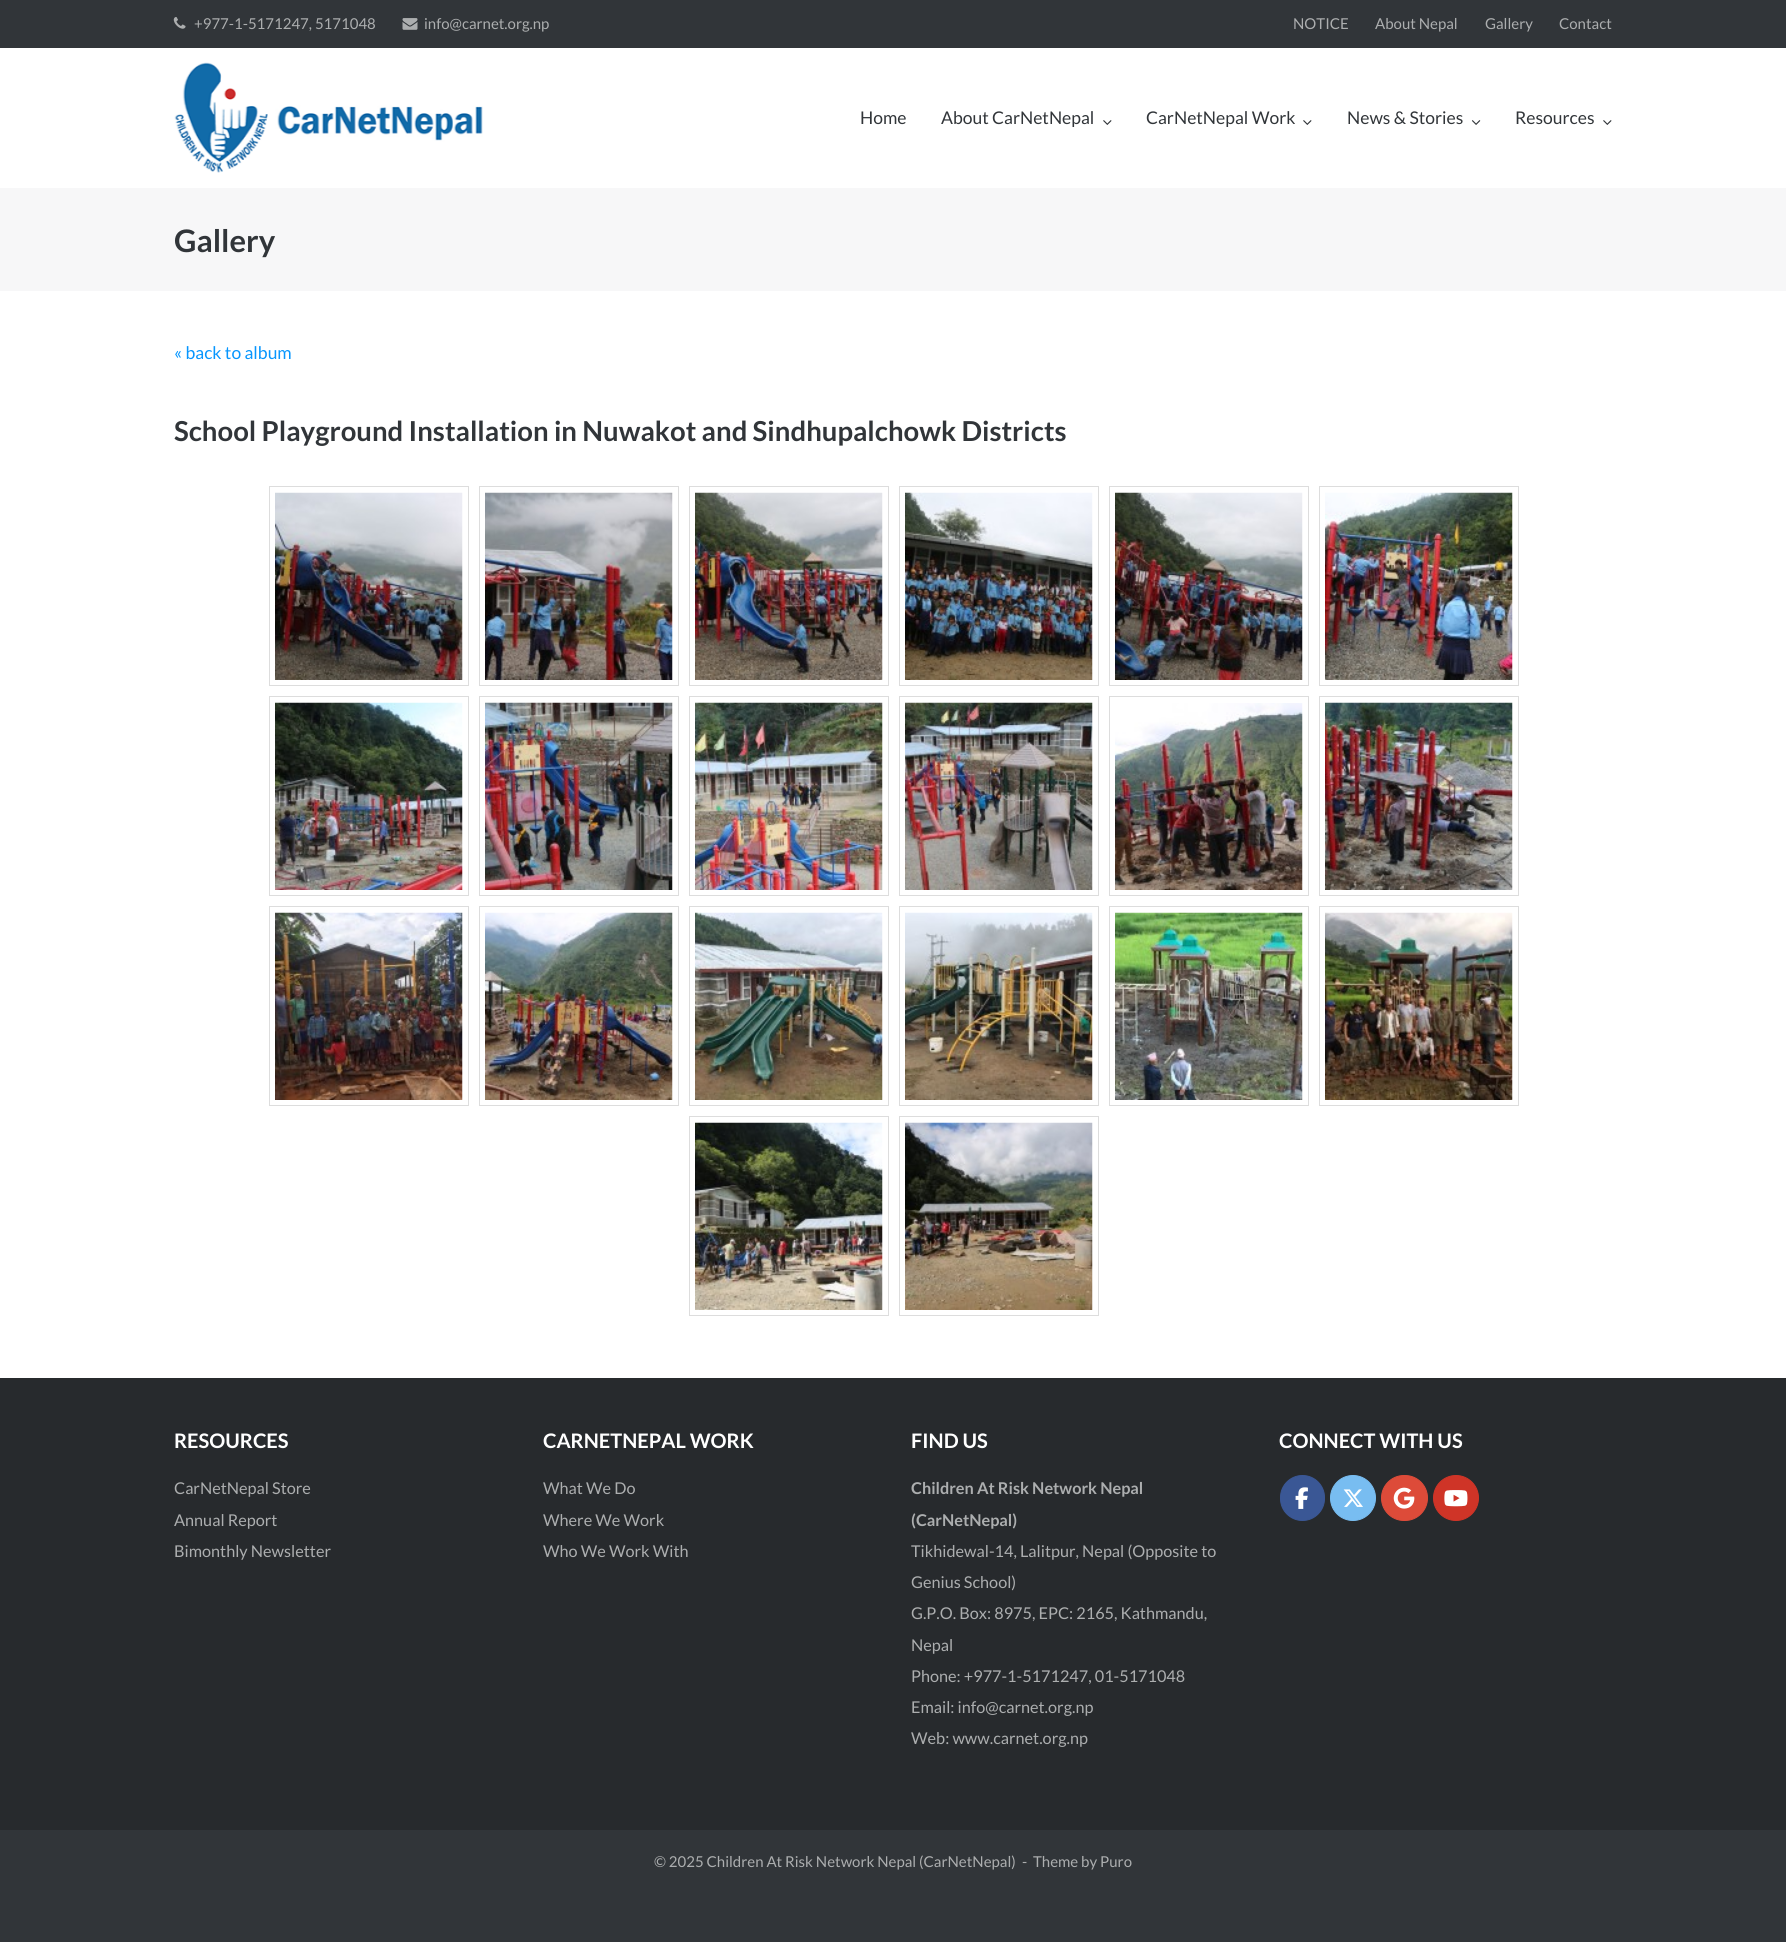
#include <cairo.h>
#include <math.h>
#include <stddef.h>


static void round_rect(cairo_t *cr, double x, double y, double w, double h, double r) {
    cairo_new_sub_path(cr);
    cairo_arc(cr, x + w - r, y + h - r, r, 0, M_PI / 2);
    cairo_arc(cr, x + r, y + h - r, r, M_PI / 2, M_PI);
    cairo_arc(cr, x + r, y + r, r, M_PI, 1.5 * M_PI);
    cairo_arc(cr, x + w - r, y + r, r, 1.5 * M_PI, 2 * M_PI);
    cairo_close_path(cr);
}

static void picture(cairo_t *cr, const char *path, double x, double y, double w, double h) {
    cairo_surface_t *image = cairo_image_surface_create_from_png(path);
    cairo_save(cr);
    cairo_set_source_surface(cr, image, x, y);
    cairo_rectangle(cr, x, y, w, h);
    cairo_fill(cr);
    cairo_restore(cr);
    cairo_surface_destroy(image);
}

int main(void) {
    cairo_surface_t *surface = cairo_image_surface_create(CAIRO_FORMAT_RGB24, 1786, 1942);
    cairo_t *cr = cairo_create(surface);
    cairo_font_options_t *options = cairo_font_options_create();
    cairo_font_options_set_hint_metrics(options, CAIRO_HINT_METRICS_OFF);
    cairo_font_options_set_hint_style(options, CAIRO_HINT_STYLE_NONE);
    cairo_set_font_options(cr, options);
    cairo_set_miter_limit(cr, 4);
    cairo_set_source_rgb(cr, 0.192, 0.208, 0.224);
    cairo_paint(cr);
    cairo_set_source_rgb(cr, 1, 1, 1);
    cairo_rectangle(cr, 0, 48, 1786, 1330);
    cairo_fill(cr);
    picture(cr, "img1.png", 173, 17, 13, 12);
    cairo_select_font_face(cr, "Lato", CAIRO_FONT_SLANT_NORMAL, CAIRO_FONT_WEIGHT_NORMAL);
    cairo_set_font_size(cr, 15);
    cairo_set_source_rgb(cr, 0.675, 0.682, 0.686);
    cairo_move_to(cr, 194, 29);
    cairo_show_text(cr, "+977-1-5171247, 5171048");
    picture(cr, "img2.png", 402, 18, 16, 12);
    cairo_move_to(cr, 424, 29);
    cairo_show_text(cr, "info@carnet.org.np");
    cairo_move_to(cr, 1293, 29);
    cairo_show_text(cr, "NOTICE");
    cairo_move_to(cr, 1375, 29);
    cairo_show_text(cr, "About Nepal");
    cairo_move_to(cr, 1485, 29);
    cairo_show_text(cr, "Gallery");
    cairo_move_to(cr, 1559, 29);
    cairo_show_text(cr, "Contact");
    picture(cr, "img3.png", 174, 62, 309, 111);
    cairo_set_font_size(cr, 17.5);
    cairo_set_source_rgb(cr, 0.192, 0.208, 0.224);
    cairo_move_to(cr, 860, 124);
    cairo_show_text(cr, "Home");
    cairo_move_to(cr, 941, 124);
    cairo_show_text(cr, "About CarNetNepal");
    picture(cr, "img4.png", 1103, 120, 9, 5);
    cairo_move_to(cr, 1146, 124);
    cairo_show_text(cr, "CarNetNepal Work");
    picture(cr, "img4.png", 1303, 120, 9, 5);
    cairo_move_to(cr, 1347, 124);
    cairo_show_text(cr, "News & Stories");
    picture(cr, "img5.png", 1471, 120, 10, 5);
    cairo_move_to(cr, 1515, 124);
    cairo_show_text(cr, "Resources");
    picture(cr, "img4.png", 1603, 120, 9, 5);
    cairo_set_source_rgb(cr, 0.965, 0.965, 0.969);
    cairo_rectangle(cr, 0, 188, 1786, 103);
    cairo_fill(cr);
    cairo_select_font_face(cr, "Lato", CAIRO_FONT_SLANT_NORMAL, CAIRO_FONT_WEIGHT_BOLD);
    cairo_set_font_size(cr, 31);
    cairo_set_source_rgb(cr, 0.192, 0.208, 0.224);
    cairo_move_to(cr, 174, 252);
    cairo_show_text(cr, "Gallery");
    cairo_select_font_face(cr, "Lato", CAIRO_FONT_SLANT_NORMAL, CAIRO_FONT_WEIGHT_NORMAL);
    cairo_set_font_size(cr, 17.5);
    cairo_set_source_rgb(cr, 0.031, 0.588, 0.996);
    cairo_move_to(cr, 174, 359);
    cairo_show_text(cr, "« back to album");
    cairo_select_font_face(cr, "Lato", CAIRO_FONT_SLANT_NORMAL, CAIRO_FONT_WEIGHT_BOLD);
    cairo_set_font_size(cr, 27.5);
    cairo_set_source_rgb(cr, 0.192, 0.208, 0.224);
    cairo_move_to(cr, 174, 441);
    cairo_show_text(cr, "School Playground Installation in Nuwakot and Sindhupalchowk Districts");
    cairo_rectangle(cr, 269.5, 486.5, 199, 199);
    cairo_set_source_rgb(cr, 0.867, 0.867, 0.867);
    cairo_set_line_width(cr, 1);
    cairo_stroke(cr);
    picture(cr, "img6.png", 275, 492, 188, 188);
    cairo_rectangle(cr, 479.5, 486.5, 199, 199);
    cairo_stroke(cr);
    picture(cr, "img7.png", 485, 492, 188, 188);
    cairo_rectangle(cr, 689.5, 486.5, 199, 199);
    cairo_stroke(cr);
    picture(cr, "img8.png", 695, 492, 188, 188);
    cairo_rectangle(cr, 899.5, 486.5, 199, 199);
    cairo_stroke(cr);
    picture(cr, "img9.png", 905, 492, 188, 188);
    cairo_rectangle(cr, 1109.5, 486.5, 199, 199);
    cairo_stroke(cr);
    picture(cr, "img10.png", 1115, 492, 188, 188);
    cairo_rectangle(cr, 1319.5, 486.5, 199, 199);
    cairo_stroke(cr);
    picture(cr, "img11.png", 1325, 492, 188, 188);
    cairo_rectangle(cr, 269.5, 696.5, 199, 199);
    cairo_stroke(cr);
    picture(cr, "img12.png", 275, 702, 188, 188);
    cairo_rectangle(cr, 479.5, 696.5, 199, 199);
    cairo_stroke(cr);
    picture(cr, "img13.png", 485, 702, 188, 188);
    cairo_rectangle(cr, 689.5, 696.5, 199, 199);
    cairo_stroke(cr);
    picture(cr, "img14.png", 695, 702, 188, 188);
    cairo_rectangle(cr, 899.5, 696.5, 199, 199);
    cairo_stroke(cr);
    picture(cr, "img15.png", 905, 702, 188, 188);
    cairo_rectangle(cr, 1109.5, 696.5, 199, 199);
    cairo_stroke(cr);
    picture(cr, "img16.png", 1115, 703, 188, 187);
    cairo_rectangle(cr, 1319.5, 696.5, 199, 199);
    cairo_stroke(cr);
    picture(cr, "img17.png", 1325, 702, 188, 188);
    cairo_rectangle(cr, 269.5, 906.5, 199, 199);
    cairo_stroke(cr);
    picture(cr, "img18.png", 275, 912, 188, 188);
    cairo_rectangle(cr, 479.5, 906.5, 199, 199);
    cairo_stroke(cr);
    picture(cr, "img19.png", 485, 912, 188, 188);
    cairo_rectangle(cr, 689.5, 906.5, 199, 199);
    cairo_stroke(cr);
    picture(cr, "img20.png", 695, 912, 188, 188);
    cairo_rectangle(cr, 899.5, 906.5, 199, 199);
    cairo_stroke(cr);
    picture(cr, "img21.png", 905, 912, 188, 188);
    cairo_rectangle(cr, 1109.5, 906.5, 199, 199);
    cairo_stroke(cr);
    picture(cr, "img22.png", 1115, 912, 188, 188);
    cairo_rectangle(cr, 1319.5, 906.5, 199, 199);
    cairo_stroke(cr);
    picture(cr, "img23.png", 1325, 912, 188, 188);
    cairo_rectangle(cr, 689.5, 1116.5, 199, 199);
    cairo_stroke(cr);
    picture(cr, "img24.png", 695, 1122, 188, 188);
    cairo_rectangle(cr, 899.5, 1116.5, 199, 199);
    cairo_stroke(cr);
    picture(cr, "img25.png", 905, 1122, 188, 188);
    cairo_set_source_rgb(cr, 0.153, 0.165, 0.176);
    cairo_rectangle(cr, 0, 1378, 1786, 452);
    cairo_fill(cr);
    cairo_set_font_size(cr, 20);
    cairo_set_source_rgb(cr, 1, 1, 1);
    cairo_move_to(cr, 174, 1448);
    cairo_show_text(cr, "RESOURCES");
    cairo_select_font_face(cr, "Lato", CAIRO_FONT_SLANT_NORMAL, CAIRO_FONT_WEIGHT_NORMAL);
    cairo_set_font_size(cr, 16.25);
    cairo_set_source_rgb(cr, 0.675, 0.682, 0.686);
    cairo_move_to(cr, 174, 1494);
    cairo_show_text(cr, "CarNetNepal Store");
    cairo_move_to(cr, 174, 1526);
    cairo_show_text(cr, "Annual Report");
    cairo_move_to(cr, 174, 1557);
    cairo_show_text(cr, "Bimonthly Newsletter");
    cairo_select_font_face(cr, "Lato", CAIRO_FONT_SLANT_NORMAL, CAIRO_FONT_WEIGHT_BOLD);
    cairo_set_font_size(cr, 20);
    cairo_set_source_rgb(cr, 1, 1, 1);
    cairo_move_to(cr, 543, 1448);
    cairo_show_text(cr, "CARNETNEPAL WORK");
    cairo_select_font_face(cr, "Lato", CAIRO_FONT_SLANT_NORMAL, CAIRO_FONT_WEIGHT_NORMAL);
    cairo_set_font_size(cr, 16.25);
    cairo_set_source_rgb(cr, 0.675, 0.682, 0.686);
    cairo_move_to(cr, 543, 1494);
    cairo_show_text(cr, "What We Do");
    cairo_move_to(cr, 543, 1526);
    cairo_show_text(cr, "Where We Work");
    cairo_move_to(cr, 543, 1557);
    cairo_show_text(cr, "Who We Work With");
    cairo_select_font_face(cr, "Lato", CAIRO_FONT_SLANT_NORMAL, CAIRO_FONT_WEIGHT_BOLD);
    cairo_set_font_size(cr, 20);
    cairo_set_source_rgb(cr, 1, 1, 1);
    cairo_move_to(cr, 911, 1448);
    cairo_show_text(cr, "FIND US");
    cairo_set_font_size(cr, 16.25);
    cairo_set_source_rgb(cr, 0.675, 0.682, 0.686);
    cairo_move_to(cr, 911, 1494);
    cairo_show_text(cr, "Children At Risk Network Nepal");
    cairo_move_to(cr, 911, 1526);
    cairo_show_text(cr, "(CarNetNepal)");
    cairo_select_font_face(cr, "Lato", CAIRO_FONT_SLANT_NORMAL, CAIRO_FONT_WEIGHT_NORMAL);
    cairo_move_to(cr, 911, 1557);
    cairo_show_text(cr, "Tikhidewal-14, Lalitpur, Nepal (Opposite to");
    cairo_move_to(cr, 911, 1588);
    cairo_show_text(cr, "Genius School)");
    cairo_move_to(cr, 911, 1619);
    cairo_show_text(cr, "G.P.O. Box: 8975, EPC: 2165, Kathmandu,");
    cairo_move_to(cr, 911, 1651);
    cairo_show_text(cr, "Nepal");
    cairo_move_to(cr, 911, 1682);
    cairo_show_text(cr, "Phone: +977-1-5171247, 01-5171048");
    cairo_move_to(cr, 911, 1713);
    cairo_show_text(cr, "Email: info@carnet.org.np");
    cairo_move_to(cr, 911, 1744);
    cairo_show_text(cr, "Web: www.carnet.org.np");
    cairo_select_font_face(cr, "Lato", CAIRO_FONT_SLANT_NORMAL, CAIRO_FONT_WEIGHT_BOLD);
    cairo_set_font_size(cr, 20);
    cairo_set_source_rgb(cr, 1, 1, 1);
    cairo_move_to(cr, 1279, 1448);
    cairo_show_text(cr, "CONNECT WITH US");
    cairo_set_source_rgb(cr, 0.227, 0.341, 0.584);
    round_rect(cr, 1280.5, 1475.5, 44, 45, 22);
    cairo_fill_preserve(cr);
    cairo_stroke(cr);
    picture(cr, "img26.png", 1295, 1487, 13, 22);
    cairo_set_source_rgb(cr, 0.471, 0.741, 0.945);
    cairo_arc(cr, 1353, 1498, 22.5, 0, 2 * M_PI);
    cairo_fill_preserve(cr);
    cairo_stroke(cr);
    picture(cr, "img27.png", 1343, 1489, 20, 18);
    cairo_set_source_rgb(cr, 0.867, 0.294, 0.224);
    round_rect(cr, 1381.5, 1475.5, 46, 45, 22.5);
    cairo_fill_preserve(cr);
    cairo_stroke(cr);
    picture(cr, "img28.png", 1393, 1487, 22, 22);
    cairo_set_source_rgb(cr, 0.812, 0.204, 0.153);
    cairo_arc(cr, 1456, 1498, 22.5, 0, 2 * M_PI);
    cairo_fill_preserve(cr);
    cairo_stroke(cr);
    picture(cr, "img29.png", 1444, 1490, 24, 17);
    cairo_select_font_face(cr, "Lato", CAIRO_FONT_SLANT_NORMAL, CAIRO_FONT_WEIGHT_NORMAL);
    cairo_set_font_size(cr, 15);
    cairo_set_source_rgb(cr, 0.675, 0.682, 0.686);
    cairo_move_to(cr, 654, 1867);
    cairo_show_text(cr, "© 2025 Children At Risk Network Nepal (CarNetNepal)");
    cairo_move_to(cr, 1022, 1867);
    cairo_show_text(cr, "-");
    cairo_move_to(cr, 1033, 1867);
    cairo_show_text(cr, "Theme by Puro");
    cairo_surface_write_to_png(surface, "page.png");
    cairo_font_options_destroy(options);
    cairo_destroy(cr);
    cairo_surface_destroy(surface);
    return 0;
}
